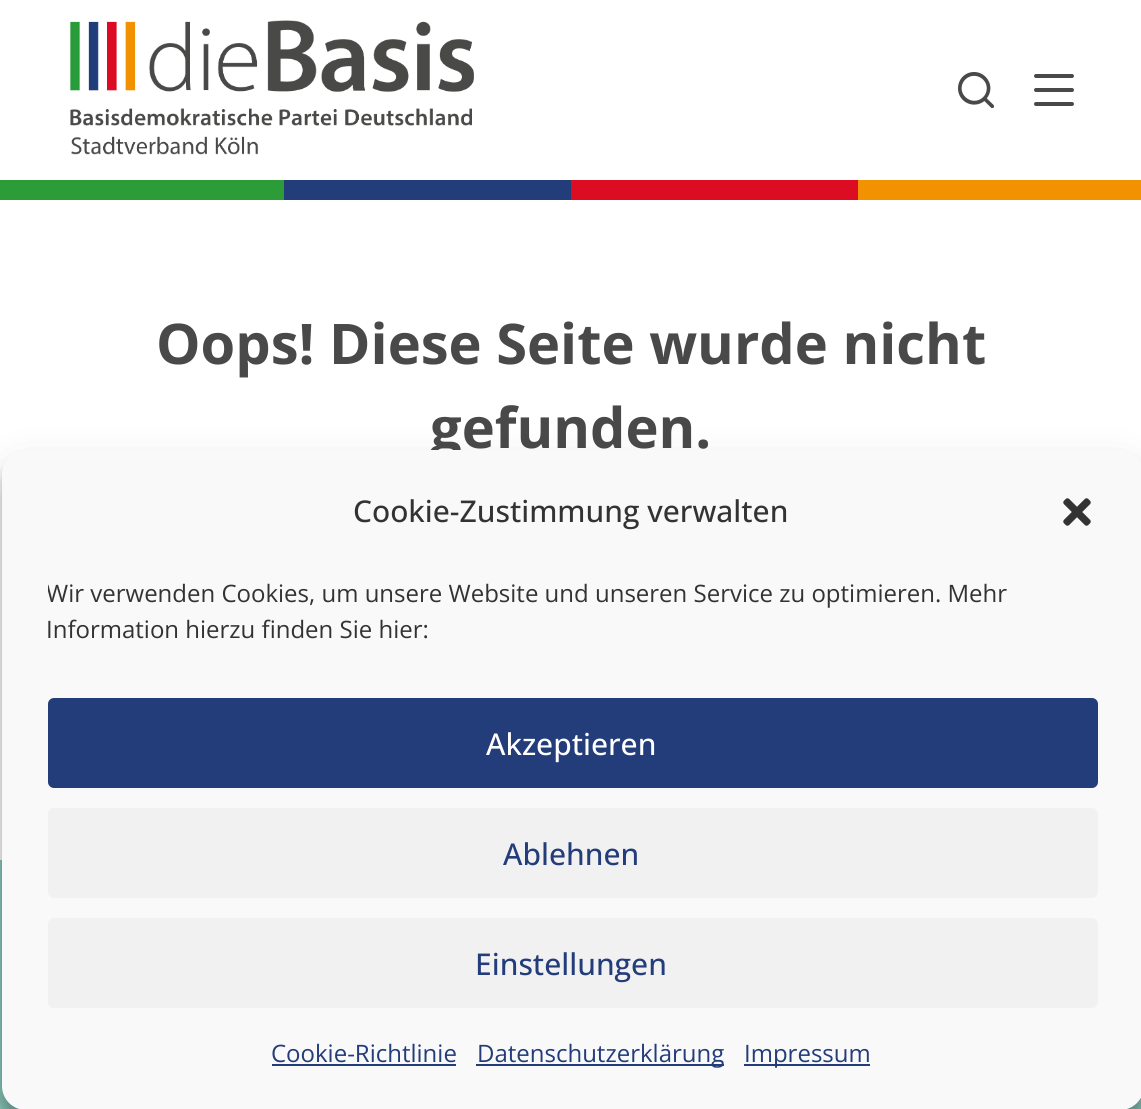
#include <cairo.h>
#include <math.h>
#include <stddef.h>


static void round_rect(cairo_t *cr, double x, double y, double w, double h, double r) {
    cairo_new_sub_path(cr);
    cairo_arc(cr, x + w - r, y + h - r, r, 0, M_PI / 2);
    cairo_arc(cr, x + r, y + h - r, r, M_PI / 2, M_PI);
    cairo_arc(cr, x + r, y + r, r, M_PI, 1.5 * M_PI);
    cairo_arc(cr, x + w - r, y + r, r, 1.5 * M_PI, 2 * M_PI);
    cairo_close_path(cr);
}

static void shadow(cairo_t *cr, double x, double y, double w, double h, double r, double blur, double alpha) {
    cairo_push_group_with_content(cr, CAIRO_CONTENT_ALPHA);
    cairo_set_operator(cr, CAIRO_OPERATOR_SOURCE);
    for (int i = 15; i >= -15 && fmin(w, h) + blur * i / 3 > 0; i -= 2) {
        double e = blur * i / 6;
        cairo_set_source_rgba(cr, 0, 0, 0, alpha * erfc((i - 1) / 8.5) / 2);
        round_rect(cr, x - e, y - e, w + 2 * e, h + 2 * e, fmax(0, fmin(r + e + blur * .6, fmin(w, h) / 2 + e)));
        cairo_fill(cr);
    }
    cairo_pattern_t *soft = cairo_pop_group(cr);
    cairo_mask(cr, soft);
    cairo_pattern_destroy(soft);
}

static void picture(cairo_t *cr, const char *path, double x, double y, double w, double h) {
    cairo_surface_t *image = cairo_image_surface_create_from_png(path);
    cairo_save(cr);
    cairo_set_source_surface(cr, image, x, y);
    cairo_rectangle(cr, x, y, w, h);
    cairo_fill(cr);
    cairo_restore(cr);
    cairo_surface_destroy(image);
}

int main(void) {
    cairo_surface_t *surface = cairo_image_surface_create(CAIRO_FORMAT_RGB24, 1141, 1109);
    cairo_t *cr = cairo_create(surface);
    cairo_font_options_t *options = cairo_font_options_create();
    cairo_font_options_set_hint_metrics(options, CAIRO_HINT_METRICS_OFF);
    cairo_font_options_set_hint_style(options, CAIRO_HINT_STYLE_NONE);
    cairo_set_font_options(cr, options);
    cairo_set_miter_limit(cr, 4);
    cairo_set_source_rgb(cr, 1, 1, 1);
    cairo_paint(cr);
    picture(cr, "img1.png", 70, 20, 404, 135);
    picture(cr, "img2.png", 958, 72, 36, 36);
    cairo_set_source_rgb(cr, 0.29, 0.286, 0.286);
    round_rect(cr, 1034, 74, 40, 4, 2);
    cairo_fill(cr);
    round_rect(cr, 1034, 88, 40, 4, 2);
    cairo_fill(cr);
    round_rect(cr, 1034, 102, 40, 4, 2);
    cairo_fill(cr);
    picture(cr, "img3.png", 0, 180, 1141, 20);
    cairo_select_font_face(cr, "Open Sans", CAIRO_FONT_SLANT_NORMAL, CAIRO_FONT_WEIGHT_BOLD);
    cairo_set_font_size(cr, 56);
    cairo_move_to(cr, 156, 364);
    cairo_show_text(cr, "Oops! Diese Seite wurde nicht");
    cairo_move_to(cr, 430, 448);
    cairo_show_text(cr, "gefunden.");
    cairo_set_source_rgb(cr, 0.545, 0.796, 0.741);
    cairo_rectangle(cr, 0, 860, 1141, 249);
    cairo_fill(cr);
    cairo_set_source_rgb(cr, 0, 0, 0);
    shadow(cr, 2, 462, 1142, 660, 24, 6, 0.23);
    shadow(cr, 2, 470, 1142, 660, 24, 20, 0.19);
    cairo_set_source_rgb(cr, 0.976, 0.976, 0.976);
    round_rect(cr, 5, 453, 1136, 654, 21);
    cairo_fill_preserve(cr);
    cairo_set_line_width(cr, 6);
    cairo_stroke(cr);
    cairo_select_font_face(cr, "Open Sans Medium", CAIRO_FONT_SLANT_NORMAL, CAIRO_FONT_WEIGHT_NORMAL);
    cairo_set_font_size(cr, 30);
    cairo_set_source_rgb(cr, 0.2, 0.2, 0.2);
    cairo_move_to(cr, 353, 522);
    cairo_show_text(cr, "Cookie-Zustimmung verwalten");
    picture(cr, "img4.png", 1063, 498, 28, 28);
    cairo_save(cr);
    cairo_rectangle(cr, 48, 576, 1050, 82);
    cairo_clip(cr);
    cairo_select_font_face(cr, "Open Sans", CAIRO_FONT_SLANT_NORMAL, CAIRO_FONT_WEIGHT_NORMAL);
    cairo_set_font_size(cr, 24);
    cairo_move_to(cr, 46, 602);
    cairo_show_text(cr, "Wir verwenden Cookies, um unsere Website und unseren Service zu optimieren. Mehr");
    cairo_restore(cr);
    cairo_select_font_face(cr, "Open Sans", CAIRO_FONT_SLANT_NORMAL, CAIRO_FONT_WEIGHT_NORMAL);
    cairo_set_font_size(cr, 24);
    cairo_move_to(cr, 46, 638);
    cairo_show_text(cr, "Information hierzu finden Sie hier:");
    cairo_set_source_rgb(cr, 0.137, 0.235, 0.478);
    round_rect(cr, 49, 699, 1048, 88, 5);
    cairo_fill_preserve(cr);
    cairo_set_line_width(cr, 2);
    cairo_stroke(cr);
    cairo_select_font_face(cr, "Open Sans Medium", CAIRO_FONT_SLANT_NORMAL, CAIRO_FONT_WEIGHT_NORMAL);
    cairo_set_font_size(cr, 30);
    cairo_set_source_rgb(cr, 1, 1, 1);
    cairo_move_to(cr, 486, 755);
    cairo_show_text(cr, "Akzeptieren");
    cairo_set_source_rgb(cr, 0.945, 0.945, 0.945);
    round_rect(cr, 48, 808, 1050, 90, 6);
    cairo_fill(cr);
    cairo_set_source_rgb(cr, 0.137, 0.235, 0.478);
    cairo_move_to(cr, 503, 865);
    cairo_show_text(cr, "Ablehnen");
    cairo_set_source_rgb(cr, 0.945, 0.945, 0.945);
    round_rect(cr, 48, 918, 1050, 90, 6);
    cairo_fill(cr);
    cairo_set_source_rgb(cr, 0.137, 0.235, 0.478);
    cairo_move_to(cr, 475, 975);
    cairo_show_text(cr, "Einstellungen");
    cairo_select_font_face(cr, "Open Sans", CAIRO_FONT_SLANT_NORMAL, CAIRO_FONT_WEIGHT_NORMAL);
    cairo_set_font_size(cr, 24);
    cairo_move_to(cr, 271, 1062);
    cairo_show_text(cr, "Cookie-Richtlinie");
    cairo_rectangle(cr, 272, 1064, 184, 2);
    cairo_fill(cr);
    cairo_rectangle(cr, 476, 1064, 248, 2);
    cairo_fill(cr);
    cairo_move_to(cr, 477, 1062);
    cairo_show_text(cr, "Datenschutzerklärung");
    cairo_rectangle(cr, 744, 1064, 126, 2);
    cairo_fill(cr);
    cairo_move_to(cr, 744, 1062);
    cairo_show_text(cr, "Impressum");
    cairo_surface_write_to_png(surface, "page.png");
    cairo_font_options_destroy(options);
    cairo_destroy(cr);
    cairo_surface_destroy(surface);
    return 0;
}
